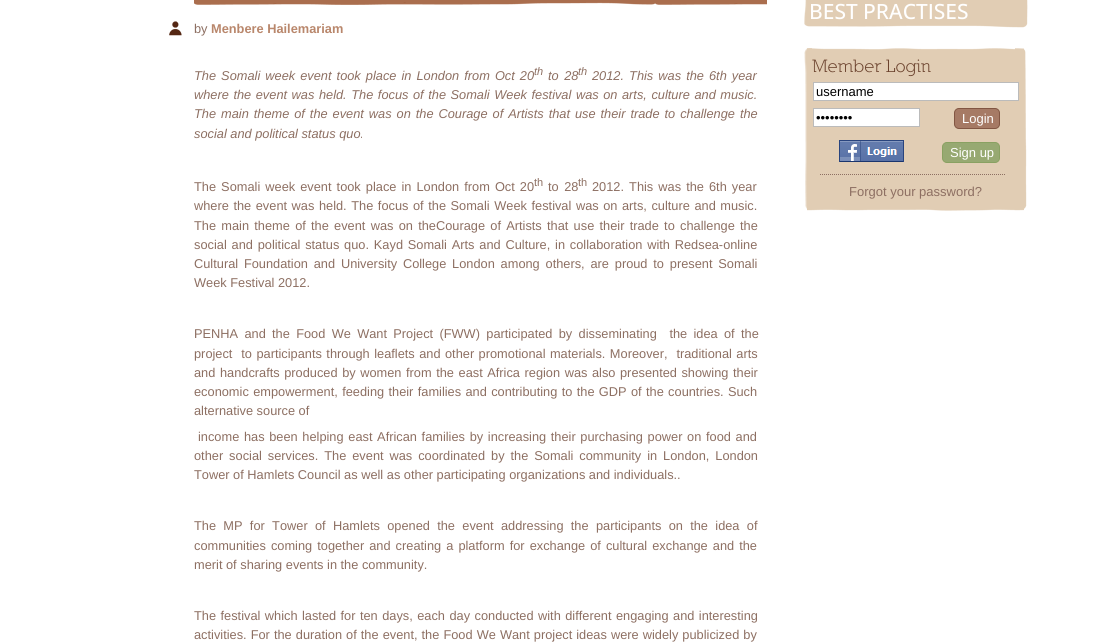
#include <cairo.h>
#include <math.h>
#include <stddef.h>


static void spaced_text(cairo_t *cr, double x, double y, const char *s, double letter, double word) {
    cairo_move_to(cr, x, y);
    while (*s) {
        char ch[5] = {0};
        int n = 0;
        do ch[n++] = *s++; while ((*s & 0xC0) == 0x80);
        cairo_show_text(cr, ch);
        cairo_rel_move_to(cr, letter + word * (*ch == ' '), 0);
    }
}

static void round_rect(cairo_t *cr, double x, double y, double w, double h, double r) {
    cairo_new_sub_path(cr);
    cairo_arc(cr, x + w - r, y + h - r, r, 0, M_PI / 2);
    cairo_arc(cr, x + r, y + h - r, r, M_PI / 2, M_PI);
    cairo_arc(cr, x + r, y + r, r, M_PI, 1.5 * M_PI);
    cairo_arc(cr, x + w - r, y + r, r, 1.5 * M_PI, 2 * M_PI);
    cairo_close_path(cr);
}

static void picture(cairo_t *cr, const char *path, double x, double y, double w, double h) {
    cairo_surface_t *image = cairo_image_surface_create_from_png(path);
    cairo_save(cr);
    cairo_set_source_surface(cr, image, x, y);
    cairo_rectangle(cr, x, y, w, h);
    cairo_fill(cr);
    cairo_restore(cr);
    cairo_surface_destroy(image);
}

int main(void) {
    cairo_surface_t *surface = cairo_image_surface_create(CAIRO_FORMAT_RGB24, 1097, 642);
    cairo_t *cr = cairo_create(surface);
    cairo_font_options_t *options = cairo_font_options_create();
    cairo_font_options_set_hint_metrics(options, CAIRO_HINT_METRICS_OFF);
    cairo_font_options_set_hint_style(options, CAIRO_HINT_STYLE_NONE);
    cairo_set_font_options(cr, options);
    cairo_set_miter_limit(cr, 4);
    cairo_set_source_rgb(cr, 1, 1, 1);
    cairo_paint(cr);
    picture(cr, "img1.png", 194, 0, 573, 5);
    picture(cr, "img2.png", 169, 21, 13, 15);
    cairo_select_font_face(cr, "Liberation Sans", CAIRO_FONT_SLANT_NORMAL, CAIRO_FONT_WEIGHT_NORMAL);
    cairo_set_font_size(cr, 12.8);
    cairo_set_source_rgb(cr, 0.553, 0.435, 0.384);
    cairo_move_to(cr, 194, 33);
    cairo_show_text(cr, "by");
    cairo_select_font_face(cr, "Liberation Sans", CAIRO_FONT_SLANT_NORMAL, CAIRO_FONT_WEIGHT_BOLD);
    cairo_set_source_rgb(cr, 0.725, 0.529, 0.424);
    cairo_move_to(cr, 211, 33);
    cairo_show_text(cr, "Menbere Hailemariam");
    cairo_select_font_face(cr, "Liberation Sans", CAIRO_FONT_SLANT_ITALIC, CAIRO_FONT_WEIGHT_NORMAL);
    cairo_set_source_rgb(cr, 0.553, 0.435, 0.384);
    spaced_text(cr, 194, 80, "The Somali week event took place in London from Oct 20", 0, 1.5);
    cairo_set_font_size(cr, 11);
    cairo_move_to(cr, 534, 75);
    cairo_show_text(cr, "th");
    cairo_set_font_size(cr, 12.8);
    spaced_text(cr, 548, 80, "to 28", 0, 2);
    cairo_set_font_size(cr, 11);
    cairo_move_to(cr, 578, 75);
    cairo_show_text(cr, "th");
    cairo_set_font_size(cr, 12.8);
    spaced_text(cr, 592, 80, "2012. This was the 6th year", 0, 1.5);
    spaced_text(cr, 194, 99, "where the event was held. The focus of the Somali Week festival was on arts, culture and music.", 0, 1);
    spaced_text(cr, 194, 118, "The main theme of the event was on the Courage of Artists that use their trade to challenge the", 0, 1.4);
    cairo_move_to(cr, 194, 138);
    cairo_show_text(cr, "social and political status quo.");
    cairo_select_font_face(cr, "Liberation Sans", CAIRO_FONT_SLANT_NORMAL, CAIRO_FONT_WEIGHT_NORMAL);
    spaced_text(cr, 194, 191, "The Somali week event took place in London from Oct 20", 0, 1.5);
    cairo_set_font_size(cr, 11);
    cairo_move_to(cr, 534, 186);
    cairo_show_text(cr, "th");
    cairo_set_font_size(cr, 12.8);
    spaced_text(cr, 548, 191, "to 28", 0, 2);
    cairo_set_font_size(cr, 11);
    cairo_move_to(cr, 578, 186);
    cairo_show_text(cr, "th");
    cairo_set_font_size(cr, 12.8);
    spaced_text(cr, 592, 191, "2012. This was the 6th year", 0, 1.5);
    spaced_text(cr, 194, 210, "where the event was held. The focus of the Somali Week festival was on arts, culture and music.", 0, 1);
    spaced_text(cr, 194, 230, "The main theme of the event was on theCourage of Artists that use their trade to challenge the", 0, 1.7);
    spaced_text(cr, 194, 249, "social and political status quo. Kayd Somali Arts and Culture, in collaboration with Redsea-online", 0, 1.25);
    spaced_text(cr, 194, 268, "Cultural Foundation and University College London among others, are proud to present Somali", 0, 2.25);
    cairo_move_to(cr, 194, 287);
    cairo_show_text(cr, "Week Festival 2012.");
    spaced_text(cr, 194, 338, "PENHA and the Food We Want Project (FWW) participated by disseminating  the idea of the", 0, 2.75);
    spaced_text(cr, 194, 358, "project  to participants through leaflets and other promotional materials. Moreover,  traditional arts", 0, 0.9);
    spaced_text(cr, 194, 377, "and handcrafts produced by women from the east Africa region was also presented showing their", 0, 1);
    spaced_text(cr, 194, 396, "economic empowerment, feeding their families and contributing to the GDP of the countries. Such", 0, 0.8);
    cairo_move_to(cr, 194, 415);
    cairo_show_text(cr, "alternative source of");
    spaced_text(cr, 198, 441, "income has been helping east African families by increasing their purchasing power on food and", 0, 1.1);
    spaced_text(cr, 194, 460, "other social services. The event was coordinated by the Somali community in London, London", 0, 2.4);
    cairo_move_to(cr, 194, 479);
    cairo_show_text(cr, "Tower of Hamlets Council as well as other participating organizations and individuals..");
    spaced_text(cr, 194, 530, "The MP for Tower of Hamlets opened the event addressing the participants on the idea of", 0, 3.75);
    spaced_text(cr, 194, 550, "communities coming together and creating a platform for exchange of cultural exchange and the", 0, 1.5);
    cairo_move_to(cr, 194, 569);
    cairo_show_text(cr, "merit of sharing events in the community.");
    spaced_text(cr, 194, 620, "The festival which lasted for ten days, each day conducted with different engaging and interesting", 0, 0.9);
    spaced_text(cr, 194, 639, "activities. For the duration of the event, the Food We Want project ideas were widely publicized by", 0, 0.5);
    picture(cr, "img3.png", 804, 0, 224, 28);
    cairo_select_font_face(cr, "Open Sans Medium", CAIRO_FONT_SLANT_NORMAL, CAIRO_FONT_WEIGHT_NORMAL);
    cairo_set_font_size(cr, 21);
    cairo_set_source_rgb(cr, 1, 1, 1);
    cairo_move_to(cr, 809, 19);
    cairo_show_text(cr, "BEST PRACTISES");
    picture(cr, "img4.png", 804, 48, 8, 5);
    picture(cr, "img5.png", 1024, 49, 2, 4);
    picture(cr, "img6.png", 807, 48, 217, 5);
    picture(cr, "img7.png", 804, 53, 8, 153);
    picture(cr, "img8.png", 1019, 53, 8, 153);
    cairo_set_source_rgb(cr, 0.882, 0.804, 0.706);
    cairo_rectangle(cr, 812, 53, 207, 153);
    cairo_fill(cr);
    cairo_select_font_face(cr, "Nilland", CAIRO_FONT_SLANT_NORMAL, CAIRO_FONT_WEIGHT_NORMAL);
    cairo_set_font_size(cr, 18.25);
    cairo_set_source_rgb(cr, 0.42, 0.259, 0.176);
    cairo_move_to(cr, 812, 72);
    cairo_show_text(cr, "Member Login");
    cairo_set_source_rgb(cr, 1, 1, 1);
    cairo_rectangle(cr, 813.5, 82.5, 205, 18);
    cairo_fill_preserve(cr);
    cairo_set_source_rgb(cr, 0.733, 0.733, 0.733);
    cairo_set_line_width(cr, 1);
    cairo_stroke(cr);
    cairo_select_font_face(cr, "Liberation Sans", CAIRO_FONT_SLANT_NORMAL, CAIRO_FONT_WEIGHT_NORMAL);
    cairo_set_font_size(cr, 13);
    cairo_set_source_rgb(cr, 0, 0, 0);
    cairo_move_to(cr, 816, 96);
    cairo_show_text(cr, "username");
    cairo_set_source_rgb(cr, 1, 1, 1);
    cairo_rectangle(cr, 813.5, 108.5, 106, 18);
    cairo_fill_preserve(cr);
    cairo_set_source_rgb(cr, 0.733, 0.733, 0.733);
    cairo_stroke(cr);
    cairo_set_source_rgb(cr, 0, 0, 0);
    cairo_move_to(cr, 816, 122);
    cairo_show_text(cr, "••••••••");
    cairo_set_source_rgb(cr, 0.651, 0.478, 0.396);
    round_rect(cr, 954.5, 108.5, 45, 20, 4.5);
    cairo_fill_preserve(cr);
    cairo_set_source_rgb(cr, 0.51, 0.337, 0.263);
    cairo_stroke(cr);
    cairo_set_source_rgb(cr, 1, 1, 1);
    cairo_move_to(cr, 962, 123);
    cairo_show_text(cr, "Login");
    picture(cr, "img9.png", 839, 140, 65, 22);
    cairo_set_source_rgb(cr, 0.592, 0.663, 0.447);
    round_rect(cr, 942.5, 142.5, 57, 20, 4.5);
    cairo_fill_preserve(cr);
    cairo_set_source_rgb(cr, 0.537, 0.631, 0.384);
    cairo_stroke(cr);
    cairo_set_source_rgb(cr, 1, 1, 1);
    cairo_move_to(cr, 950, 157);
    cairo_show_text(cr, "Sign up");
    cairo_new_path(cr);
    cairo_move_to(cr, 820, 174.5);
    cairo_line_to(cr, 1006, 174.5);
    cairo_set_source_rgb(cr, 0.553, 0.435, 0.384);
    cairo_set_dash(cr, (double[]){1, 1}, 2, 0);
    cairo_stroke(cr);
    cairo_move_to(cr, 849, 196);
    cairo_show_text(cr, "Forgot your password?");
    picture(cr, "img10.png", 805, 206, 7, 4);
    picture(cr, "img11.png", 1019, 206, 7, 4);
    picture(cr, "img12.png", 807, 206, 217, 5);
    cairo_surface_write_to_png(surface, "page.png");
    cairo_font_options_destroy(options);
    cairo_destroy(cr);
    cairo_surface_destroy(surface);
    return 0;
}
